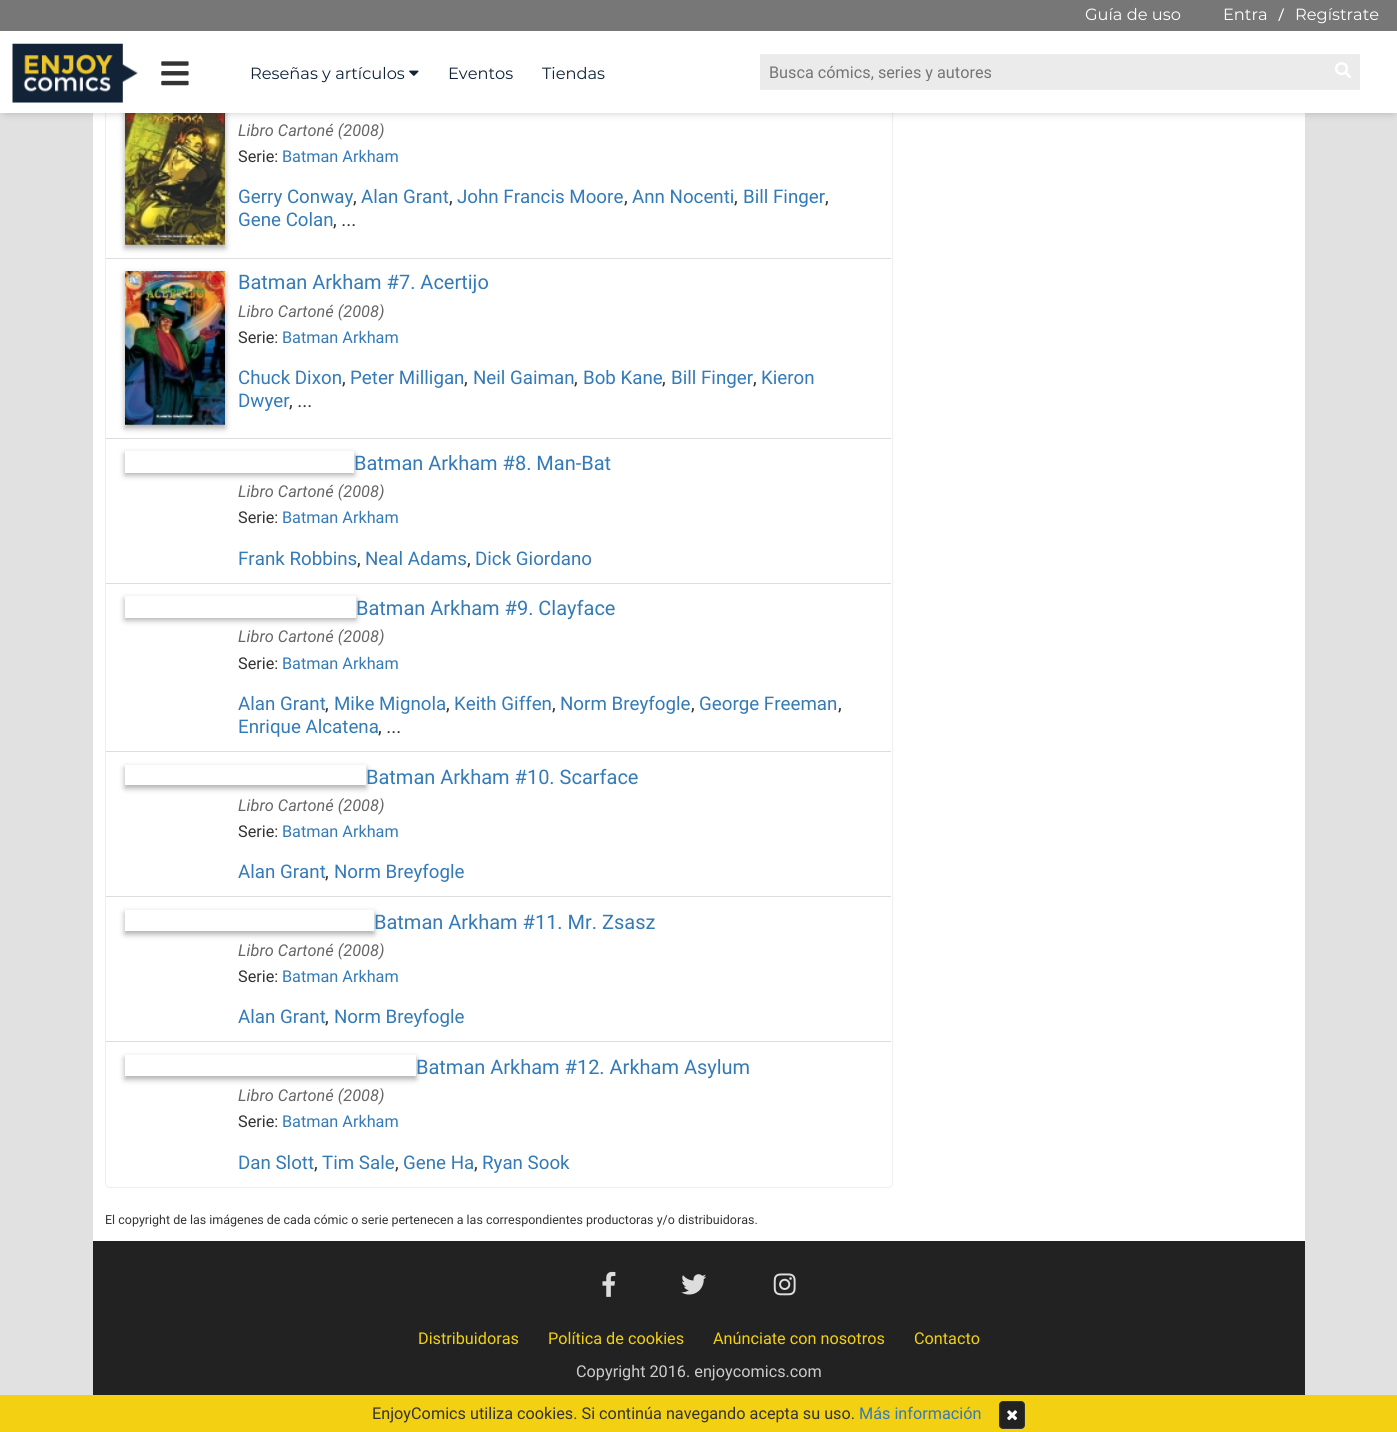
#include <cairo.h>
#include <math.h>
#include <stddef.h>


static void round_rect(cairo_t *cr, double x, double y, double w, double h, double r) {
    cairo_new_sub_path(cr);
    cairo_arc(cr, x + w - r, y + h - r, r, 0, M_PI / 2);
    cairo_arc(cr, x + r, y + h - r, r, M_PI / 2, M_PI);
    cairo_arc(cr, x + r, y + r, r, M_PI, 1.5 * M_PI);
    cairo_arc(cr, x + w - r, y + r, r, 1.5 * M_PI, 2 * M_PI);
    cairo_close_path(cr);
}

static void shadow(cairo_t *cr, double x, double y, double w, double h, double r, double blur, double alpha) {
    cairo_push_group_with_content(cr, CAIRO_CONTENT_ALPHA);
    cairo_set_operator(cr, CAIRO_OPERATOR_SOURCE);
    for (int i = 15; i >= -15 && fmin(w, h) + blur * i / 3 > 0; i -= 2) {
        double e = blur * i / 6;
        cairo_set_source_rgba(cr, 0, 0, 0, alpha * erfc((i - 1) / 8.5) / 2);
        round_rect(cr, x - e, y - e, w + 2 * e, h + 2 * e, fmax(0, fmin(r + e + blur * .6, fmin(w, h) / 2 + e)));
        cairo_fill(cr);
    }
    cairo_pattern_t *soft = cairo_pop_group(cr);
    cairo_mask(cr, soft);
    cairo_pattern_destroy(soft);
}

static void picture(cairo_t *cr, const char *path, double x, double y, double w, double h) {
    cairo_surface_t *image = cairo_image_surface_create_from_png(path);
    cairo_save(cr);
    cairo_set_source_surface(cr, image, x, y);
    cairo_rectangle(cr, x, y, w, h);
    cairo_fill(cr);
    cairo_restore(cr);
    cairo_surface_destroy(image);
}

int main(void) {
    cairo_surface_t *surface = cairo_image_surface_create(CAIRO_FORMAT_RGB24, 1397, 1432);
    cairo_t *cr = cairo_create(surface);
    cairo_font_options_t *options = cairo_font_options_create();
    cairo_font_options_set_hint_metrics(options, CAIRO_HINT_METRICS_OFF);
    cairo_font_options_set_hint_style(options, CAIRO_HINT_STYLE_NONE);
    cairo_set_font_options(cr, options);
    cairo_set_miter_limit(cr, 4);
    cairo_set_source_rgb(cr, 0.886, 0.882, 0.882);
    cairo_paint(cr);
    cairo_set_source_rgb(cr, 1, 1, 1);
    cairo_rectangle(cr, 93, 113, 1212, 1128);
    cairo_fill(cr);
    round_rect(cr, 105.5, -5.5, 787, 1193, 4.5);
    cairo_set_source_rgb(cr, 0.933, 0.933, 0.933);
    cairo_set_line_width(cr, 1);
    cairo_stroke(cr);
    cairo_set_source_rgb(cr, 0.667, 0.667, 0.667);
    shadow(cr, 125, 93, 100, 155, 0, 3, 1);
    picture(cr, "img5.png", 125, 113, 100, 132);
    cairo_set_source_rgb(cr, 0, 0, 0);
    shadow(cr, 5, 9, 1388, 102, 0, 5, 0.3);
    cairo_set_source_rgb(cr, 1, 1, 1);
    cairo_rectangle(cr, 0, 31, 1397, 82);
    cairo_fill(cr);
    cairo_set_source_rgb(cr, 0.467, 0.467, 0.467);
    cairo_rectangle(cr, 0, 0, 1397, 31);
    cairo_fill(cr);
    cairo_select_font_face(cr, "Montserrat", CAIRO_FONT_SLANT_NORMAL, CAIRO_FONT_WEIGHT_NORMAL);
    cairo_set_font_size(cr, 16.25);
    cairo_set_source_rgb(cr, 1, 1, 1);
    cairo_move_to(cr, 1085, 20);
    cairo_show_text(cr, "Guía de uso");
    cairo_move_to(cr, 1223, 20);
    cairo_show_text(cr, "Entra");
    cairo_select_font_face(cr, "Roboto", CAIRO_FONT_SLANT_NORMAL, CAIRO_FONT_WEIGHT_NORMAL);
    cairo_move_to(cr, 1278, 20);
    cairo_show_text(cr, "/");
    cairo_select_font_face(cr, "Montserrat", CAIRO_FONT_SLANT_NORMAL, CAIRO_FONT_WEIGHT_NORMAL);
    cairo_move_to(cr, 1295, 20);
    cairo_show_text(cr, "Regístrate");
    picture(cr, "img1.png", 12, 43, 126, 60);
    picture(cr, "img2.png", 161, 61, 28, 25);
    cairo_set_source_rgb(cr, 0.071, 0.137, 0.22);
    cairo_move_to(cr, 250, 79);
    cairo_show_text(cr, "Reseñas y artículos");
    picture(cr, "img3.png", 409, 70, 10, 6);
    cairo_move_to(cr, 448, 79);
    cairo_show_text(cr, "Eventos");
    cairo_move_to(cr, 542, 79);
    cairo_show_text(cr, "Tiendas");
    cairo_set_source_rgb(cr, 0.918, 0.918, 0.918);
    cairo_rectangle(cr, 760, 54, 600, 36);
    cairo_fill(cr);
    cairo_save(cr);
    cairo_rectangle(cr, 769, 63, 582, 18);
    cairo_clip(cr);
    cairo_select_font_face(cr, "Roboto", CAIRO_FONT_SLANT_NORMAL, CAIRO_FONT_WEIGHT_NORMAL);
    cairo_set_source_rgb(cr, 0.459, 0.459, 0.459);
    cairo_move_to(cr, 769, 78);
    cairo_show_text(cr, "Busca cómics, series y autores");
    cairo_restore(cr);
    picture(cr, "img4.png", 1335, 62, 16, 16);
    cairo_set_source_rgb(cr, 0.867, 0.867, 0.867);
    cairo_rectangle(cr, 106, 258, 785, 1);
    cairo_fill(cr);
    cairo_select_font_face(cr, "Roboto", CAIRO_FONT_SLANT_ITALIC, CAIRO_FONT_WEIGHT_NORMAL);
    cairo_set_source_rgb(cr, 0.4, 0.4, 0.4);
    cairo_move_to(cr, 238, 136);
    cairo_show_text(cr, "Libro Cartoné (2008)");
    cairo_select_font_face(cr, "Roboto", CAIRO_FONT_SLANT_NORMAL, CAIRO_FONT_WEIGHT_NORMAL);
    cairo_set_source_rgb(cr, 0.2, 0.2, 0.2);
    cairo_move_to(cr, 238, 162);
    cairo_show_text(cr, "Serie:");
    cairo_set_source_rgb(cr, 0.2, 0.478, 0.718);
    cairo_move_to(cr, 282, 162);
    cairo_show_text(cr, "Batman Arkham");
    cairo_set_font_size(cr, 18.75);
    cairo_move_to(cr, 238, 203);
    cairo_show_text(cr, "Gerry Conway");
    cairo_set_source_rgb(cr, 0.2, 0.2, 0.2);
    cairo_move_to(cr, 353, 203);
    cairo_show_text(cr, ",");
    cairo_set_source_rgb(cr, 0.2, 0.478, 0.718);
    cairo_move_to(cr, 361, 203);
    cairo_show_text(cr, "Alan Grant");
    cairo_set_source_rgb(cr, 0.2, 0.2, 0.2);
    cairo_move_to(cr, 449, 203);
    cairo_show_text(cr, ",");
    cairo_set_source_rgb(cr, 0.2, 0.478, 0.718);
    cairo_move_to(cr, 457, 203);
    cairo_show_text(cr, "John Francis Moore");
    cairo_set_source_rgb(cr, 0.2, 0.2, 0.2);
    cairo_move_to(cr, 624, 203);
    cairo_show_text(cr, ",");
    cairo_set_source_rgb(cr, 0.2, 0.478, 0.718);
    cairo_move_to(cr, 632, 203);
    cairo_show_text(cr, "Ann Nocenti");
    cairo_set_source_rgb(cr, 0.2, 0.2, 0.2);
    cairo_move_to(cr, 734, 203);
    cairo_show_text(cr, ",");
    cairo_set_source_rgb(cr, 0.2, 0.478, 0.718);
    cairo_move_to(cr, 743, 203);
    cairo_show_text(cr, "Bill Finger");
    cairo_set_source_rgb(cr, 0.2, 0.2, 0.2);
    cairo_move_to(cr, 825, 203);
    cairo_show_text(cr, ",");
    cairo_set_source_rgb(cr, 0.2, 0.478, 0.718);
    cairo_move_to(cr, 238, 226);
    cairo_show_text(cr, "Gene Colan");
    cairo_set_source_rgb(cr, 0.2, 0.2, 0.2);
    cairo_move_to(cr, 333, 226);
    cairo_show_text(cr, ", ...");
    cairo_set_source_rgb(cr, 0.867, 0.867, 0.867);
    cairo_rectangle(cr, 106, 438, 785, 1);
    cairo_fill(cr);
    cairo_set_source_rgb(cr, 0.667, 0.667, 0.667);
    shadow(cr, 125, 274, 100, 154, 0, 3, 1);
    picture(cr, "img6.png", 125, 271, 100, 154);
    cairo_set_font_size(cr, 20);
    cairo_set_source_rgb(cr, 0.2, 0.478, 0.718);
    cairo_move_to(cr, 238, 289);
    cairo_show_text(cr, "Batman Arkham #7. Acertijo");
    cairo_select_font_face(cr, "Roboto", CAIRO_FONT_SLANT_ITALIC, CAIRO_FONT_WEIGHT_NORMAL);
    cairo_set_font_size(cr, 16.25);
    cairo_set_source_rgb(cr, 0.4, 0.4, 0.4);
    cairo_move_to(cr, 238, 317);
    cairo_show_text(cr, "Libro Cartoné (2008)");
    cairo_select_font_face(cr, "Roboto", CAIRO_FONT_SLANT_NORMAL, CAIRO_FONT_WEIGHT_NORMAL);
    cairo_set_source_rgb(cr, 0.2, 0.2, 0.2);
    cairo_move_to(cr, 238, 343);
    cairo_show_text(cr, "Serie:");
    cairo_set_source_rgb(cr, 0.2, 0.478, 0.718);
    cairo_move_to(cr, 282, 343);
    cairo_show_text(cr, "Batman Arkham");
    cairo_set_font_size(cr, 18.75);
    cairo_move_to(cr, 238, 384);
    cairo_show_text(cr, "Chuck Dixon");
    cairo_set_source_rgb(cr, 0.2, 0.2, 0.2);
    cairo_move_to(cr, 342, 384);
    cairo_show_text(cr, ",");
    cairo_set_source_rgb(cr, 0.2, 0.478, 0.718);
    cairo_move_to(cr, 350, 384);
    cairo_show_text(cr, "Peter Milligan");
    cairo_set_source_rgb(cr, 0.2, 0.2, 0.2);
    cairo_move_to(cr, 464, 384);
    cairo_show_text(cr, ",");
    cairo_set_source_rgb(cr, 0.2, 0.478, 0.718);
    cairo_move_to(cr, 473, 384);
    cairo_show_text(cr, "Neil Gaiman");
    cairo_set_source_rgb(cr, 0.2, 0.2, 0.2);
    cairo_move_to(cr, 574, 384);
    cairo_show_text(cr, ",");
    cairo_set_source_rgb(cr, 0.2, 0.478, 0.718);
    cairo_move_to(cr, 583, 384);
    cairo_show_text(cr, "Bob Kane");
    cairo_set_source_rgb(cr, 0.2, 0.2, 0.2);
    cairo_move_to(cr, 662, 384);
    cairo_show_text(cr, ",");
    cairo_set_source_rgb(cr, 0.2, 0.478, 0.718);
    cairo_move_to(cr, 671, 384);
    cairo_show_text(cr, "Bill Finger");
    cairo_set_source_rgb(cr, 0.2, 0.2, 0.2);
    cairo_move_to(cr, 753, 384);
    cairo_show_text(cr, ",");
    cairo_set_source_rgb(cr, 0.2, 0.478, 0.718);
    cairo_move_to(cr, 761, 384);
    cairo_show_text(cr, "Kieron");
    cairo_move_to(cr, 238, 407);
    cairo_show_text(cr, "Dwyer");
    cairo_set_source_rgb(cr, 0.2, 0.2, 0.2);
    cairo_move_to(cr, 289, 407);
    cairo_show_text(cr, ", ...");
    cairo_set_source_rgb(cr, 0.867, 0.867, 0.867);
    cairo_rectangle(cr, 106, 583, 785, 1);
    cairo_fill(cr);
    cairo_set_source_rgb(cr, 0.667, 0.667, 0.667);
    shadow(cr, 125, 454, 229, 21, 0, 3, 1);
    cairo_set_source_rgb(cr, 1, 1, 1);
    cairo_rectangle(cr, 125, 451, 229, 22);
    cairo_fill(cr);
    cairo_set_font_size(cr, 20);
    cairo_set_source_rgb(cr, 0.2, 0.478, 0.718);
    cairo_move_to(cr, 354, 470);
    cairo_show_text(cr, "Batman Arkham #8. Man-Bat");
    cairo_select_font_face(cr, "Roboto", CAIRO_FONT_SLANT_ITALIC, CAIRO_FONT_WEIGHT_NORMAL);
    cairo_set_font_size(cr, 16.25);
    cairo_set_source_rgb(cr, 0.4, 0.4, 0.4);
    cairo_move_to(cr, 238, 497);
    cairo_show_text(cr, "Libro Cartoné (2008)");
    cairo_select_font_face(cr, "Roboto", CAIRO_FONT_SLANT_NORMAL, CAIRO_FONT_WEIGHT_NORMAL);
    cairo_set_source_rgb(cr, 0.2, 0.2, 0.2);
    cairo_move_to(cr, 238, 523);
    cairo_show_text(cr, "Serie:");
    cairo_set_source_rgb(cr, 0.2, 0.478, 0.718);
    cairo_move_to(cr, 282, 523);
    cairo_show_text(cr, "Batman Arkham");
    cairo_set_font_size(cr, 18.75);
    cairo_move_to(cr, 238, 565);
    cairo_show_text(cr, "Frank Robbins");
    cairo_set_source_rgb(cr, 0.2, 0.2, 0.2);
    cairo_move_to(cr, 357, 565);
    cairo_show_text(cr, ",");
    cairo_set_source_rgb(cr, 0.2, 0.478, 0.718);
    cairo_move_to(cr, 365, 565);
    cairo_show_text(cr, "Neal Adams");
    cairo_set_source_rgb(cr, 0.2, 0.2, 0.2);
    cairo_move_to(cr, 467, 565);
    cairo_show_text(cr, ",");
    cairo_set_source_rgb(cr, 0.2, 0.478, 0.718);
    cairo_move_to(cr, 475, 565);
    cairo_show_text(cr, "Dick Giordano");
    cairo_set_source_rgb(cr, 0.867, 0.867, 0.867);
    cairo_rectangle(cr, 106, 751, 785, 1);
    cairo_fill(cr);
    cairo_set_source_rgb(cr, 0.667, 0.667, 0.667);
    shadow(cr, 125, 599, 231, 21, 0, 3, 1);
    cairo_set_source_rgb(cr, 1, 1, 1);
    cairo_rectangle(cr, 125, 596, 231, 22);
    cairo_fill(cr);
    cairo_set_font_size(cr, 20);
    cairo_set_source_rgb(cr, 0.2, 0.478, 0.718);
    cairo_move_to(cr, 356, 615);
    cairo_show_text(cr, "Batman Arkham #9. Clayface");
    cairo_select_font_face(cr, "Roboto", CAIRO_FONT_SLANT_ITALIC, CAIRO_FONT_WEIGHT_NORMAL);
    cairo_set_font_size(cr, 16.25);
    cairo_set_source_rgb(cr, 0.4, 0.4, 0.4);
    cairo_move_to(cr, 238, 642);
    cairo_show_text(cr, "Libro Cartoné (2008)");
    cairo_select_font_face(cr, "Roboto", CAIRO_FONT_SLANT_NORMAL, CAIRO_FONT_WEIGHT_NORMAL);
    cairo_set_source_rgb(cr, 0.2, 0.2, 0.2);
    cairo_move_to(cr, 238, 669);
    cairo_show_text(cr, "Serie:");
    cairo_set_source_rgb(cr, 0.2, 0.478, 0.718);
    cairo_move_to(cr, 282, 669);
    cairo_show_text(cr, "Batman Arkham");
    cairo_set_font_size(cr, 18.75);
    cairo_move_to(cr, 238, 710);
    cairo_show_text(cr, "Alan Grant");
    cairo_set_source_rgb(cr, 0.2, 0.2, 0.2);
    cairo_move_to(cr, 325, 710);
    cairo_show_text(cr, ",");
    cairo_set_source_rgb(cr, 0.2, 0.478, 0.718);
    cairo_move_to(cr, 334, 710);
    cairo_show_text(cr, "Mike Mignola");
    cairo_set_source_rgb(cr, 0.2, 0.2, 0.2);
    cairo_move_to(cr, 446, 710);
    cairo_show_text(cr, ",");
    cairo_set_source_rgb(cr, 0.2, 0.478, 0.718);
    cairo_move_to(cr, 454, 710);
    cairo_show_text(cr, "Keith Giffen");
    cairo_set_source_rgb(cr, 0.2, 0.2, 0.2);
    cairo_move_to(cr, 552, 710);
    cairo_show_text(cr, ",");
    cairo_set_source_rgb(cr, 0.2, 0.478, 0.718);
    cairo_move_to(cr, 560, 710);
    cairo_show_text(cr, "Norm Breyfogle");
    cairo_set_source_rgb(cr, 0.2, 0.2, 0.2);
    cairo_move_to(cr, 691, 710);
    cairo_show_text(cr, ",");
    cairo_set_source_rgb(cr, 0.2, 0.478, 0.718);
    cairo_move_to(cr, 699, 710);
    cairo_show_text(cr, "George Freeman");
    cairo_set_source_rgb(cr, 0.2, 0.2, 0.2);
    cairo_move_to(cr, 838, 710);
    cairo_show_text(cr, ",");
    cairo_set_source_rgb(cr, 0.2, 0.478, 0.718);
    cairo_move_to(cr, 238, 733);
    cairo_show_text(cr, "Enrique Alcatena");
    cairo_set_source_rgb(cr, 0.2, 0.2, 0.2);
    cairo_move_to(cr, 378, 733);
    cairo_show_text(cr, ", ...");
    cairo_set_source_rgb(cr, 0.867, 0.867, 0.867);
    cairo_rectangle(cr, 106, 896, 785, 1);
    cairo_fill(cr);
    cairo_save(cr);
    cairo_set_fill_rule(cr, CAIRO_FILL_RULE_EVEN_ODD);
    cairo_new_path(cr);
    cairo_move_to(cr, 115, 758);
    cairo_line_to(cr, 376, 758);
    cairo_line_to(cr, 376, 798);
    cairo_line_to(cr, 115, 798);
    cairo_close_path(cr);
    cairo_move_to(cr, 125, 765);
    cairo_line_to(cr, 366, 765);
    cairo_line_to(cr, 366, 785);
    cairo_line_to(cr, 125, 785);
    cairo_close_path(cr);
    cairo_clip(cr);
    cairo_set_source_rgb(cr, 0.667, 0.667, 0.667);
    shadow(cr, 125, 768, 241, 20, 0, 3, 1);
    cairo_restore(cr);
    cairo_set_font_size(cr, 20);
    cairo_set_source_rgb(cr, 0.2, 0.478, 0.718);
    cairo_move_to(cr, 366, 784);
    cairo_show_text(cr, "Batman Arkham #10. Scarface");
    cairo_select_font_face(cr, "Roboto", CAIRO_FONT_SLANT_ITALIC, CAIRO_FONT_WEIGHT_NORMAL);
    cairo_set_font_size(cr, 16.25);
    cairo_set_source_rgb(cr, 0.4, 0.4, 0.4);
    cairo_move_to(cr, 238, 811);
    cairo_show_text(cr, "Libro Cartoné (2008)");
    cairo_select_font_face(cr, "Roboto", CAIRO_FONT_SLANT_NORMAL, CAIRO_FONT_WEIGHT_NORMAL);
    cairo_set_source_rgb(cr, 0.2, 0.2, 0.2);
    cairo_move_to(cr, 238, 837);
    cairo_show_text(cr, "Serie:");
    cairo_set_source_rgb(cr, 0.2, 0.478, 0.718);
    cairo_move_to(cr, 282, 837);
    cairo_show_text(cr, "Batman Arkham");
    cairo_set_font_size(cr, 18.75);
    cairo_move_to(cr, 238, 878);
    cairo_show_text(cr, "Alan Grant");
    cairo_set_source_rgb(cr, 0.2, 0.2, 0.2);
    cairo_move_to(cr, 325, 878);
    cairo_show_text(cr, ",");
    cairo_set_source_rgb(cr, 0.2, 0.478, 0.718);
    cairo_move_to(cr, 334, 878);
    cairo_show_text(cr, "Norm Breyfogle");
    cairo_set_source_rgb(cr, 0.667, 0.667, 0.667);
    shadow(cr, 125, 913, 249, 21, 0, 3, 1);
    cairo_set_source_rgb(cr, 1, 1, 1);
    cairo_rectangle(cr, 125, 910, 249, 21);
    cairo_fill(cr);
    cairo_set_font_size(cr, 20);
    cairo_set_source_rgb(cr, 0.2, 0.478, 0.718);
    cairo_move_to(cr, 374, 929);
    cairo_show_text(cr, "Batman Arkham #11. Mr. Zsasz");
    cairo_select_font_face(cr, "Roboto", CAIRO_FONT_SLANT_ITALIC, CAIRO_FONT_WEIGHT_NORMAL);
    cairo_set_font_size(cr, 16.25);
    cairo_set_source_rgb(cr, 0.4, 0.4, 0.4);
    cairo_move_to(cr, 238, 956);
    cairo_show_text(cr, "Libro Cartoné (2008)");
    cairo_select_font_face(cr, "Roboto", CAIRO_FONT_SLANT_NORMAL, CAIRO_FONT_WEIGHT_NORMAL);
    cairo_set_source_rgb(cr, 0.2, 0.2, 0.2);
    cairo_move_to(cr, 238, 982);
    cairo_show_text(cr, "Serie:");
    cairo_set_source_rgb(cr, 0.2, 0.478, 0.718);
    cairo_move_to(cr, 282, 982);
    cairo_show_text(cr, "Batman Arkham");
    cairo_set_font_size(cr, 18.75);
    cairo_move_to(cr, 238, 1023);
    cairo_show_text(cr, "Alan Grant");
    cairo_set_source_rgb(cr, 0.2, 0.2, 0.2);
    cairo_move_to(cr, 325, 1023);
    cairo_show_text(cr, ",");
    cairo_set_source_rgb(cr, 0.2, 0.478, 0.718);
    cairo_move_to(cr, 334, 1023);
    cairo_show_text(cr, "Norm Breyfogle");
    cairo_set_source_rgb(cr, 0.867, 0.867, 0.867);
    cairo_rectangle(cr, 106, 1041, 785, 1);
    cairo_fill(cr);
    cairo_save(cr);
    cairo_set_fill_rule(cr, CAIRO_FILL_RULE_EVEN_ODD);
    cairo_new_path(cr);
    cairo_move_to(cr, 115, 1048);
    cairo_line_to(cr, 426, 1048);
    cairo_line_to(cr, 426, 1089);
    cairo_line_to(cr, 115, 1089);
    cairo_close_path(cr);
    cairo_move_to(cr, 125, 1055);
    cairo_line_to(cr, 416, 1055);
    cairo_line_to(cr, 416, 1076);
    cairo_line_to(cr, 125, 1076);
    cairo_close_path(cr);
    cairo_clip(cr);
    cairo_set_source_rgb(cr, 0.667, 0.667, 0.667);
    shadow(cr, 125, 1058, 291, 21, 0, 3, 1);
    cairo_restore(cr);
    cairo_set_font_size(cr, 20);
    cairo_set_source_rgb(cr, 0.2, 0.478, 0.718);
    cairo_move_to(cr, 416, 1074);
    cairo_show_text(cr, "Batman Arkham #12. Arkham Asylum");
    cairo_select_font_face(cr, "Roboto", CAIRO_FONT_SLANT_ITALIC, CAIRO_FONT_WEIGHT_NORMAL);
    cairo_set_font_size(cr, 16.25);
    cairo_set_source_rgb(cr, 0.4, 0.4, 0.4);
    cairo_move_to(cr, 238, 1101);
    cairo_show_text(cr, "Libro Cartoné (2008)");
    cairo_select_font_face(cr, "Roboto", CAIRO_FONT_SLANT_NORMAL, CAIRO_FONT_WEIGHT_NORMAL);
    cairo_set_source_rgb(cr, 0.2, 0.2, 0.2);
    cairo_move_to(cr, 238, 1127);
    cairo_show_text(cr, "Serie:");
    cairo_set_source_rgb(cr, 0.2, 0.478, 0.718);
    cairo_move_to(cr, 282, 1127);
    cairo_show_text(cr, "Batman Arkham");
    cairo_set_font_size(cr, 18.75);
    cairo_move_to(cr, 238, 1169);
    cairo_show_text(cr, "Dan Slott");
    cairo_set_source_rgb(cr, 0.2, 0.2, 0.2);
    cairo_move_to(cr, 314, 1169);
    cairo_show_text(cr, ",");
    cairo_set_source_rgb(cr, 0.2, 0.478, 0.718);
    cairo_move_to(cr, 322, 1169);
    cairo_show_text(cr, "Tim Sale");
    cairo_set_source_rgb(cr, 0.2, 0.2, 0.2);
    cairo_move_to(cr, 395, 1169);
    cairo_show_text(cr, ",");
    cairo_set_source_rgb(cr, 0.2, 0.478, 0.718);
    cairo_move_to(cr, 403, 1169);
    cairo_show_text(cr, "Gene Ha");
    cairo_set_source_rgb(cr, 0.2, 0.2, 0.2);
    cairo_move_to(cr, 474, 1169);
    cairo_show_text(cr, ",");
    cairo_set_source_rgb(cr, 0.2, 0.478, 0.718);
    cairo_move_to(cr, 482, 1169);
    cairo_show_text(cr, "Ryan Sook");
    cairo_set_font_size(cr, 12.5);
    cairo_set_source_rgb(cr, 0.2, 0.2, 0.2);
    cairo_move_to(cr, 105, 1224);
    cairo_show_text(cr, "El copyright de las imágenes de cada cómic o serie pertenecen a las correspondientes productoras y/o distribuidoras.");
    cairo_set_source_rgb(cr, 0.133, 0.133, 0.133);
    cairo_rectangle(cr, 93, 1241, 1212, 154);
    cairo_fill(cr);
    picture(cr, "img7.png", 602, 1271, 14, 26);
    picture(cr, "img8.png", 681, 1274, 26, 21);
    picture(cr, "img9.png", 773, 1273, 23, 23);
    cairo_set_font_size(cr, 16.25);
    cairo_set_source_rgb(cr, 0.953, 0.816, 0.071);
    cairo_move_to(cr, 418, 1344);
    cairo_show_text(cr, "Distribuidoras");
    cairo_move_to(cr, 548, 1344);
    cairo_show_text(cr, "Política de cookies");
    cairo_move_to(cr, 713, 1344);
    cairo_show_text(cr, "Anúnciate con nosotros");
    cairo_move_to(cr, 914, 1344);
    cairo_show_text(cr, "Contacto");
    cairo_set_source_rgb(cr, 0.8, 0.8, 0.8);
    cairo_move_to(cr, 576, 1377);
    cairo_show_text(cr, "Copyright 2016. enjoycomics.com");
    cairo_set_source_rgb(cr, 0.953, 0.816, 0.071);
    cairo_rectangle(cr, 0, 1395, 1397, 37);
    cairo_fill(cr);
    cairo_set_source_rgb(cr, 0.2, 0.2, 0.2);
    cairo_move_to(cr, 372, 1419);
    cairo_show_text(cr, "EnjoyComics utiliza cookies. Si continúa navegando acepta su uso.");
    cairo_set_source_rgb(cr, 0.2, 0.478, 0.718);
    cairo_move_to(cr, 859, 1419);
    cairo_show_text(cr, "Más información");
    cairo_set_source_rgb(cr, 0.133, 0.133, 0.133);
    round_rect(cr, 999.5, 1401.5, 25, 27, 3.5);
    cairo_fill_preserve(cr);
    cairo_set_source_rgb(cr, 0.2, 0.2, 0.2);
    cairo_stroke(cr);
    picture(cr, "img10.png", 1007, 1410, 11, 11);
    cairo_surface_write_to_png(surface, "page.png");
    cairo_font_options_destroy(options);
    cairo_destroy(cr);
    cairo_surface_destroy(surface);
    return 0;
}
